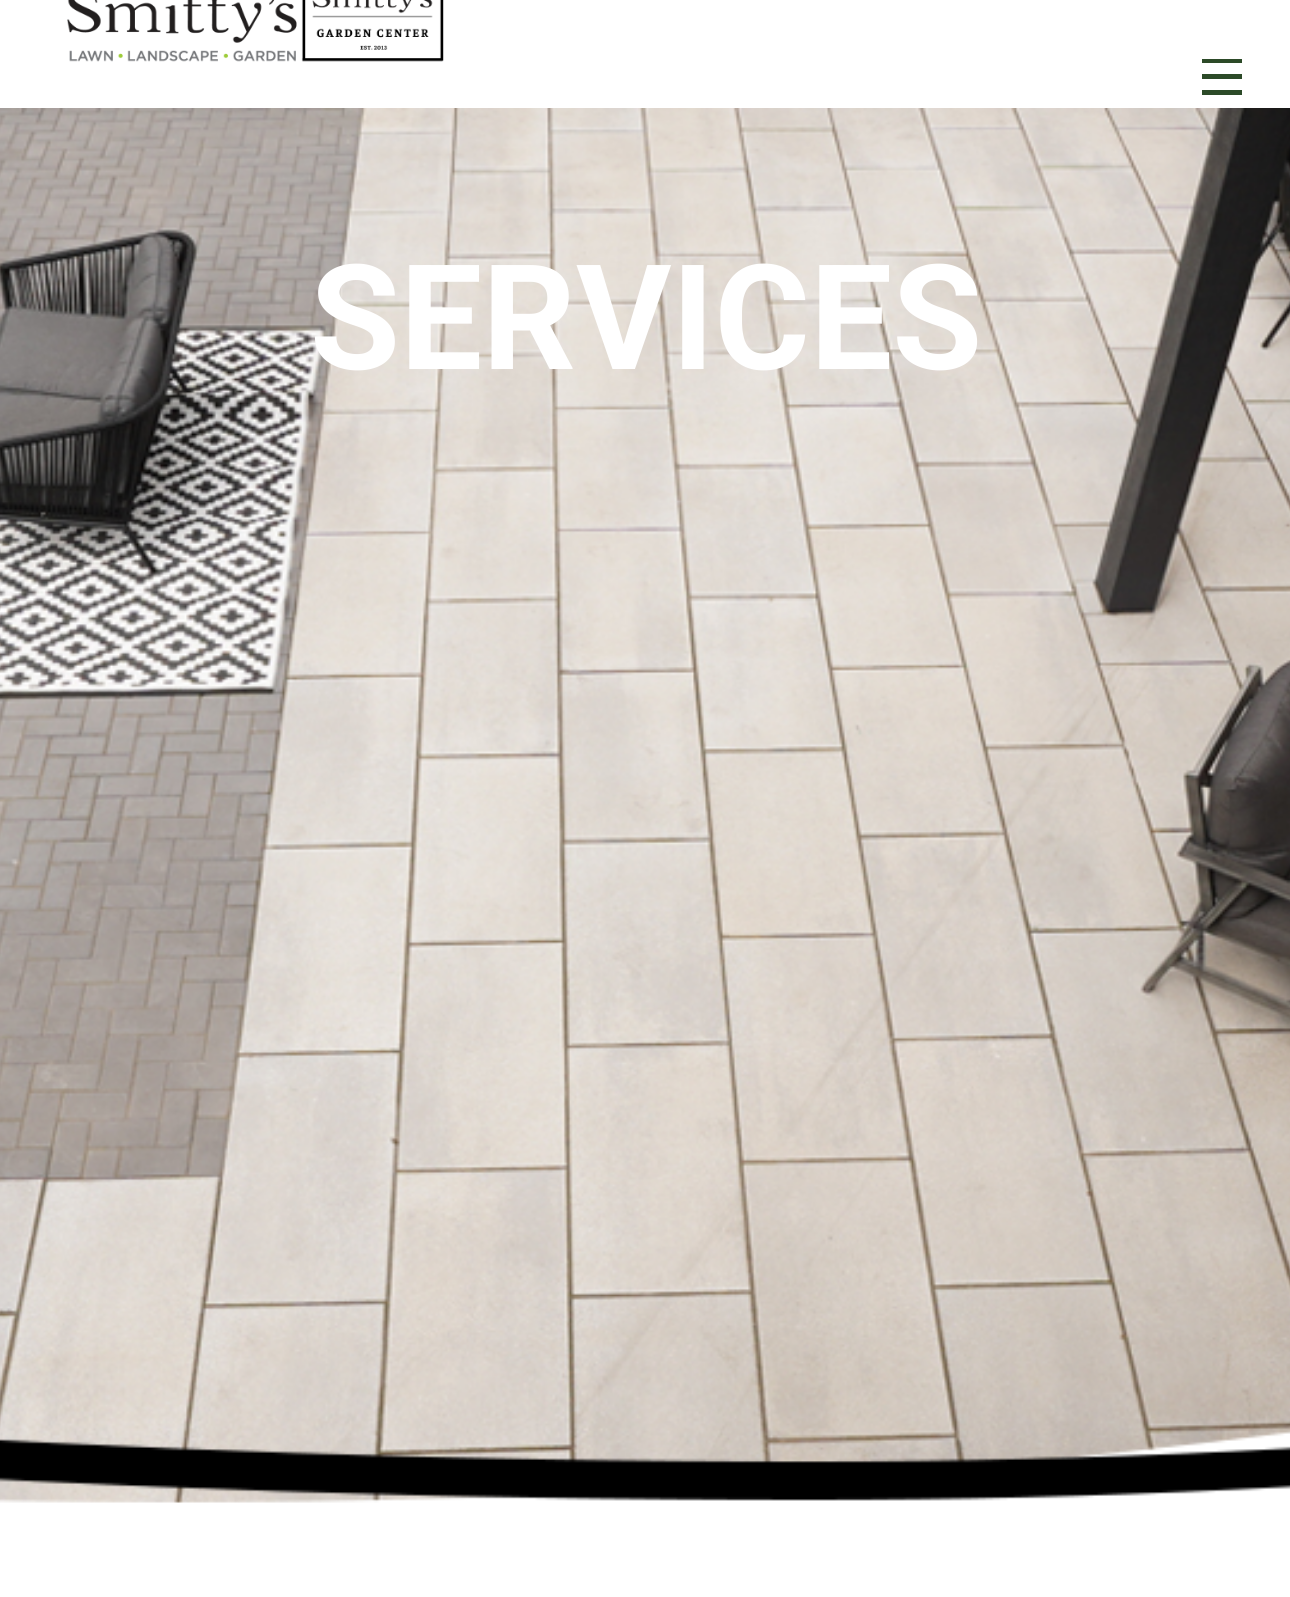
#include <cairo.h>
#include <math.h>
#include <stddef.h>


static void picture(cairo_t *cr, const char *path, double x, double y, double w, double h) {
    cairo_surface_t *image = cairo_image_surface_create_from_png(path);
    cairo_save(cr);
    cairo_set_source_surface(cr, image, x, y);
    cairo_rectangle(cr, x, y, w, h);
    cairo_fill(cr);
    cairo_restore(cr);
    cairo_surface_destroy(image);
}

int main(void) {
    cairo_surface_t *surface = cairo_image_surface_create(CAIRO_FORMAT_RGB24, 1290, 1597);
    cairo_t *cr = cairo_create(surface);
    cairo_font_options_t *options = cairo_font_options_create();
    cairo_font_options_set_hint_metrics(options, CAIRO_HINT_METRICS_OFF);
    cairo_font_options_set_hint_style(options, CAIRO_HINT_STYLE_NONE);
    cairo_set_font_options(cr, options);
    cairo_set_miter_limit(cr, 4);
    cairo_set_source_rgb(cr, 1, 1, 1);
    cairo_paint(cr);
    picture(cr, "img1.png", 67, 0, 377, 62);
    cairo_set_source_rgb(cr, 0.173, 0.29, 0.157);
    cairo_rectangle(cr, 1202, 59, 40, 4);
    cairo_fill(cr);
    cairo_rectangle(cr, 1202, 74, 40, 5);
    cairo_fill(cr);
    cairo_rectangle(cr, 1202, 90, 40, 5);
    cairo_fill(cr);
    picture(cr, "img2.png", 0, 108, 1290, 1395);
    cairo_select_font_face(cr, "Roboto", CAIRO_FONT_SLANT_NORMAL, CAIRO_FONT_WEIGHT_BOLD);
    cairo_set_font_size(cr, 146.25);
    cairo_set_source_rgb(cr, 1, 1, 1);
    cairo_move_to(cr, 310, 369);
    cairo_show_text(cr, "SERVICES");
    cairo_surface_write_to_png(surface, "page.png");
    cairo_font_options_destroy(options);
    cairo_destroy(cr);
    cairo_surface_destroy(surface);
    return 0;
}
